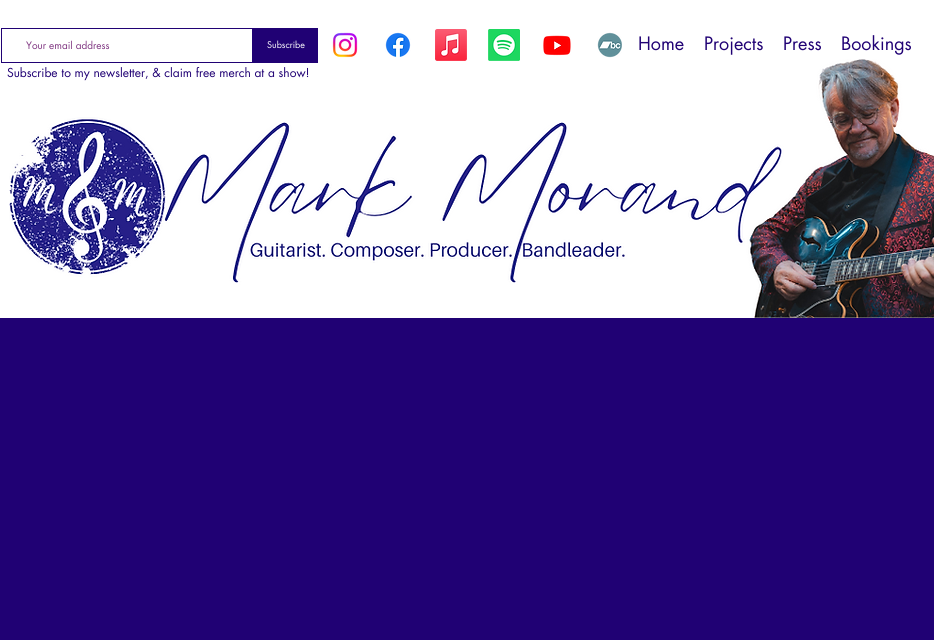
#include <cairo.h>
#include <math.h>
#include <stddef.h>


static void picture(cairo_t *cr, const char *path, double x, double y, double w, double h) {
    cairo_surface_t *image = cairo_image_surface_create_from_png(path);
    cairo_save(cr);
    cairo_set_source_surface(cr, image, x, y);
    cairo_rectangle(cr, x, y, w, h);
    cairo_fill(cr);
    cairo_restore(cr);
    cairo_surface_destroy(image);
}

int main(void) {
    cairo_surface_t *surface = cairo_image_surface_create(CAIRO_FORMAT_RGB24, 934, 640);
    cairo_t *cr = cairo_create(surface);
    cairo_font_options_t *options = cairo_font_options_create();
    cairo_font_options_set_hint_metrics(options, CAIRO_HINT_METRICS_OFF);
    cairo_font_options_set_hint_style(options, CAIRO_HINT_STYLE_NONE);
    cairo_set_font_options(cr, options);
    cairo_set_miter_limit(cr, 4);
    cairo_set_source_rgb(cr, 0.125, 0.004, 0.455);
    cairo_paint(cr);
    cairo_set_source_rgb(cr, 1, 1, 1);
    cairo_rectangle(cr, 0, 0, 934, 318);
    cairo_fill(cr);
    picture(cr, "img7.png", 9, 59, 925, 259);
    cairo_rectangle(cr, 1.5, 28.5, 251, 34);
    cairo_set_source_rgb(cr, 0.125, 0.004, 0.455);
    cairo_set_line_width(cr, 1);
    cairo_stroke(cr);
    cairo_select_font_face(cr, "futura", CAIRO_FONT_SLANT_NORMAL, CAIRO_FONT_WEIGHT_NORMAL);
    cairo_set_font_size(cr, 10);
    cairo_set_source_rgb(cr, 0.494, 0.204, 0.502);
    cairo_move_to(cr, 26, 49);
    cairo_show_text(cr, "Your email address");
    cairo_set_source_rgb(cr, 0.125, 0.004, 0.455);
    cairo_rectangle(cr, 253, 28, 65, 35);
    cairo_fill(cr);
    cairo_set_font_size(cr, 9);
    cairo_set_source_rgb(cr, 1, 1, 1);
    cairo_move_to(cr, 267, 48);
    cairo_show_text(cr, "Subscribe");
    cairo_set_font_size(cr, 12);
    cairo_set_source_rgb(cr, 0.125, 0.004, 0.455);
    cairo_move_to(cr, 7, 77);
    cairo_show_text(cr, "Subscribe to my newsletter, & claim free merch at a show!");
    picture(cr, "img1.png", 332, 32, 26, 26);
    picture(cr, "img2.png", 385, 32, 26, 25);
    picture(cr, "img3.png", 435, 29, 32, 32);
    picture(cr, "img4.png", 488, 29, 32, 32);
    picture(cr, "img5.png", 543, 35, 28, 21);
    picture(cr, "img6.png", 597, 32, 25, 26);
    cairo_set_font_size(cr, 18);
    cairo_move_to(cr, 638, 50);
    cairo_show_text(cr, "Home");
    cairo_move_to(cr, 704, 50);
    cairo_show_text(cr, "Projects");
    cairo_move_to(cr, 783, 50);
    cairo_show_text(cr, "Press");
    cairo_move_to(cr, 841, 50);
    cairo_show_text(cr, "Bookings");
    cairo_surface_write_to_png(surface, "page.png");
    cairo_font_options_destroy(options);
    cairo_destroy(cr);
    cairo_surface_destroy(surface);
    return 0;
}
